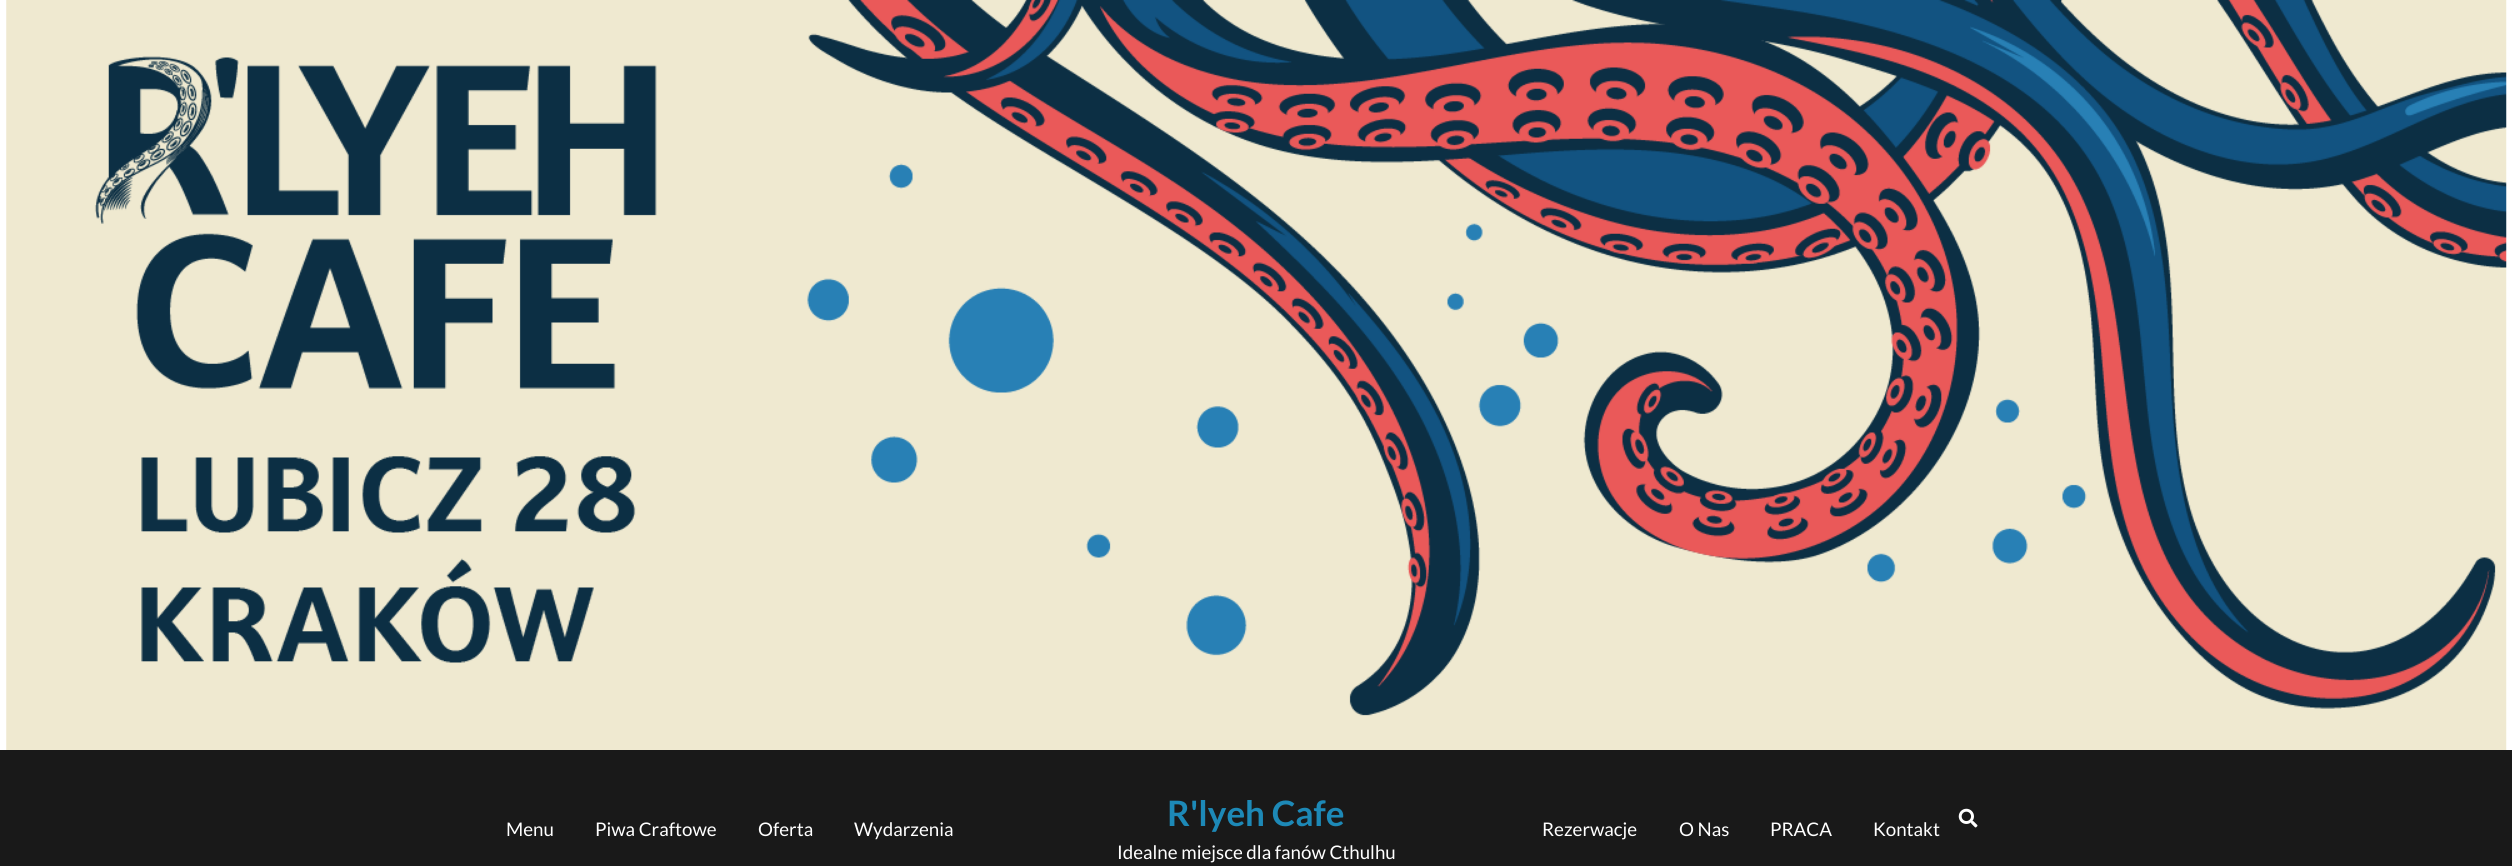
#include <cairo.h>
#include <math.h>
#include <stddef.h>


static void picture(cairo_t *cr, const char *path, double x, double y, double w, double h) {
    cairo_surface_t *image = cairo_image_surface_create_from_png(path);
    cairo_save(cr);
    cairo_set_source_surface(cr, image, x, y);
    cairo_rectangle(cr, x, y, w, h);
    cairo_fill(cr);
    cairo_restore(cr);
    cairo_surface_destroy(image);
}

int main(void) {
    cairo_surface_t *surface = cairo_image_surface_create(CAIRO_FORMAT_RGB24, 2512, 866);
    cairo_t *cr = cairo_create(surface);
    cairo_font_options_t *options = cairo_font_options_create();
    cairo_font_options_set_hint_metrics(options, CAIRO_HINT_METRICS_OFF);
    cairo_font_options_set_hint_style(options, CAIRO_HINT_STYLE_NONE);
    cairo_set_font_options(cr, options);
    cairo_set_miter_limit(cr, 4);
    cairo_set_source_rgb(cr, 1, 1, 1);
    cairo_paint(cr);
    picture(cr, "img1.png", 6, 0, 2501, 750);
    cairo_set_source_rgb(cr, 0.098, 0.098, 0.098);
    cairo_rectangle(cr, 0, 750, 2512, 116);
    cairo_fill(cr);
    cairo_select_font_face(cr, "Lato", CAIRO_FONT_SLANT_NORMAL, CAIRO_FONT_WEIGHT_NORMAL);
    cairo_set_font_size(cr, 18.75);
    cairo_set_source_rgb(cr, 1, 1, 1);
    cairo_move_to(cr, 506, 836);
    cairo_show_text(cr, "Menu");
    cairo_move_to(cr, 595, 836);
    cairo_show_text(cr, "Piwa Craftowe");
    cairo_move_to(cr, 758, 836);
    cairo_show_text(cr, "Oferta");
    cairo_move_to(cr, 854, 836);
    cairo_show_text(cr, "Wydarzenia");
    cairo_select_font_face(cr, "Lato", CAIRO_FONT_SLANT_NORMAL, CAIRO_FONT_WEIGHT_BOLD);
    cairo_set_font_size(cr, 35);
    cairo_set_source_rgb(cr, 0.114, 0.537, 0.718);
    cairo_move_to(cr, 1167, 826);
    cairo_show_text(cr, "R'lyeh Cafe");
    cairo_select_font_face(cr, "Lato", CAIRO_FONT_SLANT_NORMAL, CAIRO_FONT_WEIGHT_NORMAL);
    cairo_set_font_size(cr, 18.75);
    cairo_set_source_rgb(cr, 1, 1, 1);
    cairo_move_to(cr, 1117, 859);
    cairo_show_text(cr, "Idealne miejsce dla fanów Cthulhu");
    picture(cr, "img2.png", 1958, 808, 20, 20);
    cairo_move_to(cr, 1542, 836);
    cairo_show_text(cr, "Rezerwacje");
    cairo_move_to(cr, 1679, 836);
    cairo_show_text(cr, "O Nas");
    cairo_move_to(cr, 1770, 836);
    cairo_show_text(cr, "PRACA");
    cairo_move_to(cr, 1873, 836);
    cairo_show_text(cr, "Kontakt");
    cairo_surface_write_to_png(surface, "page.png");
    cairo_font_options_destroy(options);
    cairo_destroy(cr);
    cairo_surface_destroy(surface);
    return 0;
}
